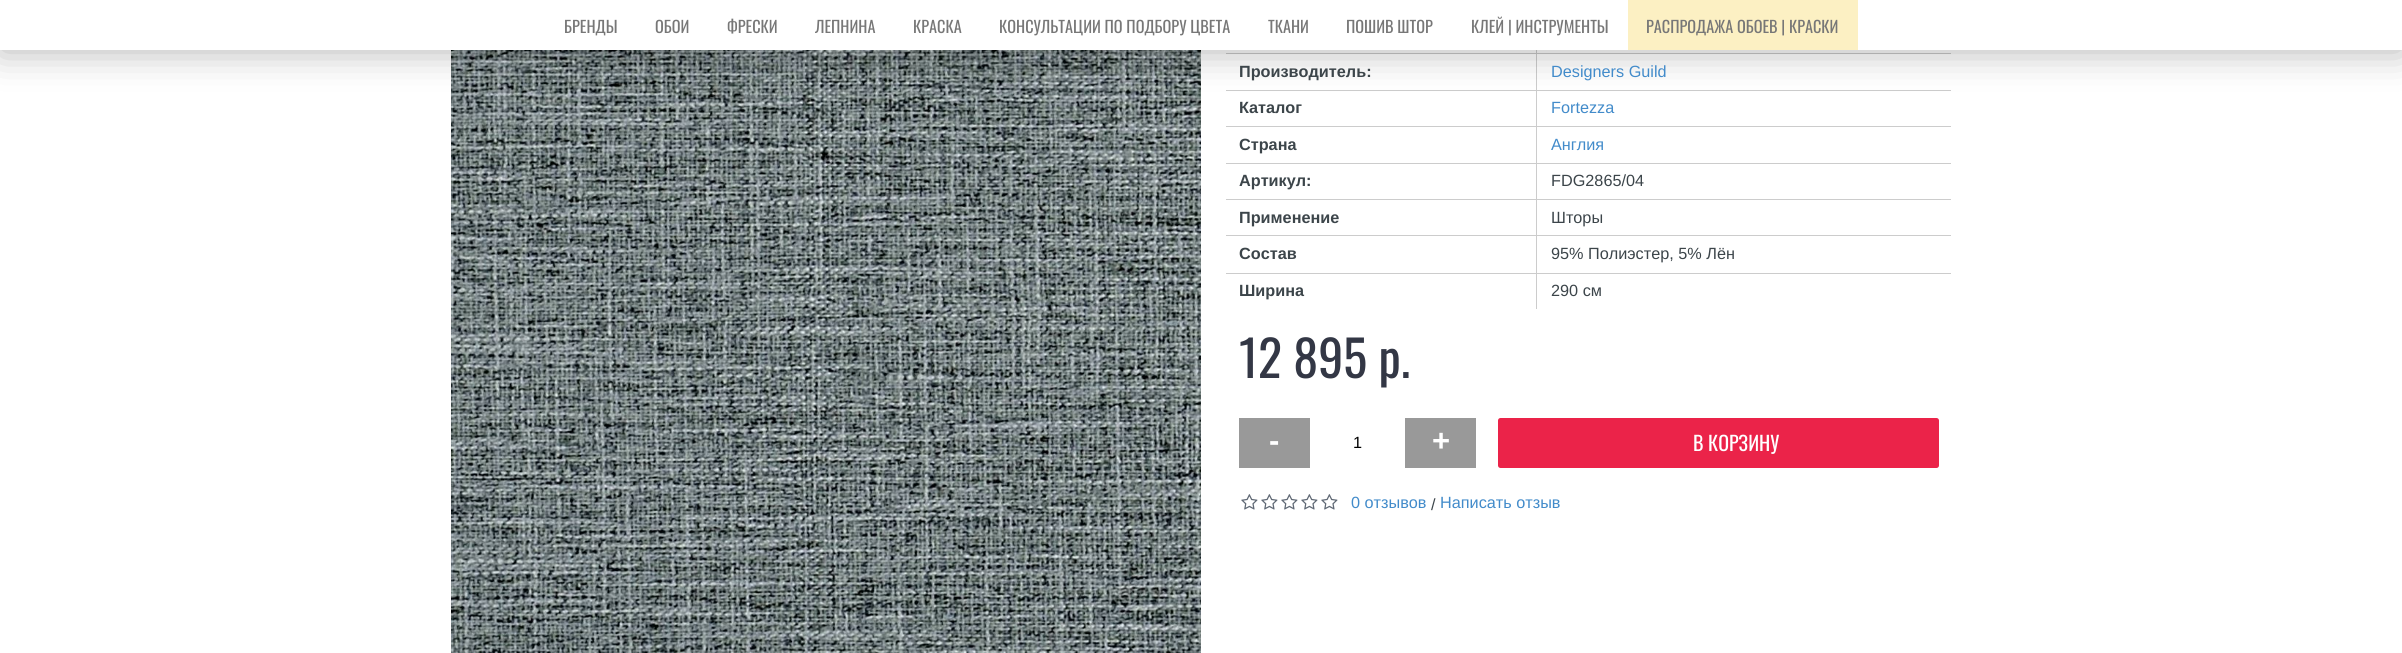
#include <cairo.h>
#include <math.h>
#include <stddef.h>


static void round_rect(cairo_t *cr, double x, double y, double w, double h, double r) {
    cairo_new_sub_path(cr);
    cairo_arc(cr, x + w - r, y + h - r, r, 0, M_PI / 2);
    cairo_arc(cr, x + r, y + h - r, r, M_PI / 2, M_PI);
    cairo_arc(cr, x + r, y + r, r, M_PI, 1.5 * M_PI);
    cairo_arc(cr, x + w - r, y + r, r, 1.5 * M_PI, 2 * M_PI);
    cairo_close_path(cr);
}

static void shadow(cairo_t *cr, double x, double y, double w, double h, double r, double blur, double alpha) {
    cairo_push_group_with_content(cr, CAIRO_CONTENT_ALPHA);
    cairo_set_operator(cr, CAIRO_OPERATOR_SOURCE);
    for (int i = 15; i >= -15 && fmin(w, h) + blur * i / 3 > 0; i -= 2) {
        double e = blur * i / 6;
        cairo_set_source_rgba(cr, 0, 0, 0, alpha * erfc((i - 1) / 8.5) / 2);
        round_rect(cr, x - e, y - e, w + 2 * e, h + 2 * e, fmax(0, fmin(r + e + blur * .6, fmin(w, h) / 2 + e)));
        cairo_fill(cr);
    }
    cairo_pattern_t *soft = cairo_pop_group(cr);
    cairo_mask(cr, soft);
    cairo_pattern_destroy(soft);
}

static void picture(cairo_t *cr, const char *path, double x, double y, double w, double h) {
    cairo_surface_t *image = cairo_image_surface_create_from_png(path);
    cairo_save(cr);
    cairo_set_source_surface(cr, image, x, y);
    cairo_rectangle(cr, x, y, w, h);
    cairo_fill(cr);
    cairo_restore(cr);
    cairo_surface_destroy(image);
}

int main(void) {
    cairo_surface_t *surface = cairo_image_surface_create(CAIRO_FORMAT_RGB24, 2402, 653);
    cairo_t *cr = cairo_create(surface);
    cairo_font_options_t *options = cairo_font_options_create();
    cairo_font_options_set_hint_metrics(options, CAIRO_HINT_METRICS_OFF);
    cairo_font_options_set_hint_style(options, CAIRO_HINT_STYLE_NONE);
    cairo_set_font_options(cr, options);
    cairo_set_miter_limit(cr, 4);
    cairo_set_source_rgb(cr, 1, 1, 1);
    cairo_paint(cr);
    picture(cr, "img1.png", 451, 50, 750, 603);
    cairo_set_source_rgb(cr, 0.8, 0.8, 0.8);
    cairo_rectangle(cr, 1226, 53, 725, 1);
    cairo_fill(cr);
    cairo_rectangle(cr, 1536, 50, 1, 4);
    cairo_fill(cr);
    cairo_rectangle(cr, 1226, 90, 725, 1);
    cairo_fill(cr);
    cairo_rectangle(cr, 1536, 54, 1, 37);
    cairo_fill(cr);
    cairo_rectangle(cr, 1226, 126, 725, 1);
    cairo_fill(cr);
    cairo_rectangle(cr, 1536, 91, 1, 37);
    cairo_fill(cr);
    cairo_set_source_rgb(cr, 0, 0, 0);
    shadow(cr, 0, 1, 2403, 50, 0, 19, 0.3);
    cairo_set_source_rgb(cr, 1, 1, 1);
    cairo_rectangle(cr, 0, 0, 2402, 50);
    cairo_fill(cr);
    cairo_select_font_face(cr, "Oswald", CAIRO_FONT_SLANT_NORMAL, CAIRO_FONT_WEIGHT_NORMAL);
    cairo_set_font_size(cr, 16.25);
    cairo_set_source_rgb(cr, 0.467, 0.467, 0.467);
    cairo_move_to(cr, 564, 33);
    cairo_show_text(cr, "БРЕНДЫ");
    cairo_move_to(cr, 655, 33);
    cairo_show_text(cr, "ОБОИ");
    cairo_move_to(cr, 727, 33);
    cairo_show_text(cr, "ФРЕСКИ");
    cairo_move_to(cr, 815, 33);
    cairo_show_text(cr, "ЛЕПНИНА");
    cairo_move_to(cr, 913, 33);
    cairo_show_text(cr, "КРАСКА");
    cairo_move_to(cr, 999, 33);
    cairo_show_text(cr, "КОНСУЛЬТАЦИИ ПО ПОДБОРУ ЦВЕТА");
    cairo_move_to(cr, 1268, 33);
    cairo_show_text(cr, "ТКАНИ");
    cairo_move_to(cr, 1346, 33);
    cairo_show_text(cr, "ПОШИВ ШТОР");
    cairo_move_to(cr, 1471, 33);
    cairo_show_text(cr, "КЛЕЙ | ИНСТРУМЕНТЫ");
    cairo_set_source_rgb(cr, 0.988, 0.941, 0.765);
    cairo_rectangle(cr, 1628, 0, 230, 50);
    cairo_fill(cr);
    cairo_set_source_rgb(cr, 0.467, 0.467, 0.467);
    cairo_move_to(cr, 1646, 33);
    cairo_show_text(cr, "РАСПРОДАЖА ОБОЕВ | КРАСКИ");
    cairo_select_font_face(cr, "Liberation Sans", CAIRO_FONT_SLANT_NORMAL, CAIRO_FONT_WEIGHT_BOLD);
    cairo_set_source_rgb(cr, 0.235, 0.271, 0.29);
    cairo_move_to(cr, 1239, 77);
    cairo_show_text(cr, "Производитель:");
    cairo_select_font_face(cr, "Liberation Sans", CAIRO_FONT_SLANT_NORMAL, CAIRO_FONT_WEIGHT_NORMAL);
    cairo_set_source_rgb(cr, 0.259, 0.545, 0.792);
    cairo_move_to(cr, 1551, 77);
    cairo_show_text(cr, "Designers Guild");
    cairo_select_font_face(cr, "Liberation Sans", CAIRO_FONT_SLANT_NORMAL, CAIRO_FONT_WEIGHT_BOLD);
    cairo_set_source_rgb(cr, 0.235, 0.271, 0.29);
    cairo_move_to(cr, 1239, 113);
    cairo_show_text(cr, "Каталог");
    cairo_select_font_face(cr, "Liberation Sans", CAIRO_FONT_SLANT_NORMAL, CAIRO_FONT_WEIGHT_NORMAL);
    cairo_set_source_rgb(cr, 0.259, 0.545, 0.792);
    cairo_move_to(cr, 1551, 113);
    cairo_show_text(cr, "Fortezza");
    cairo_set_source_rgb(cr, 0.8, 0.8, 0.8);
    cairo_rectangle(cr, 1226, 163, 725, 1);
    cairo_fill(cr);
    cairo_select_font_face(cr, "Liberation Sans", CAIRO_FONT_SLANT_NORMAL, CAIRO_FONT_WEIGHT_BOLD);
    cairo_set_source_rgb(cr, 0.235, 0.271, 0.29);
    cairo_move_to(cr, 1239, 150);
    cairo_show_text(cr, "Страна");
    cairo_set_source_rgb(cr, 0.8, 0.8, 0.8);
    cairo_rectangle(cr, 1536, 128, 1, 36);
    cairo_fill(cr);
    cairo_select_font_face(cr, "Liberation Sans", CAIRO_FONT_SLANT_NORMAL, CAIRO_FONT_WEIGHT_NORMAL);
    cairo_set_source_rgb(cr, 0.259, 0.545, 0.792);
    cairo_move_to(cr, 1551, 150);
    cairo_show_text(cr, "Англия");
    cairo_set_source_rgb(cr, 0.8, 0.8, 0.8);
    cairo_rectangle(cr, 1226, 199, 725, 1);
    cairo_fill(cr);
    cairo_select_font_face(cr, "Liberation Sans", CAIRO_FONT_SLANT_NORMAL, CAIRO_FONT_WEIGHT_BOLD);
    cairo_set_source_rgb(cr, 0.235, 0.271, 0.29);
    cairo_move_to(cr, 1239, 186);
    cairo_show_text(cr, "Артикул:");
    cairo_set_source_rgb(cr, 0.8, 0.8, 0.8);
    cairo_rectangle(cr, 1536, 164, 1, 36);
    cairo_fill(cr);
    cairo_select_font_face(cr, "Liberation Sans", CAIRO_FONT_SLANT_NORMAL, CAIRO_FONT_WEIGHT_NORMAL);
    cairo_set_source_rgb(cr, 0.235, 0.271, 0.29);
    cairo_move_to(cr, 1551, 186);
    cairo_show_text(cr, "FDG2865/04");
    cairo_set_source_rgb(cr, 0.8, 0.8, 0.8);
    cairo_rectangle(cr, 1226, 235, 725, 1);
    cairo_fill(cr);
    cairo_select_font_face(cr, "Liberation Sans", CAIRO_FONT_SLANT_NORMAL, CAIRO_FONT_WEIGHT_BOLD);
    cairo_set_source_rgb(cr, 0.235, 0.271, 0.29);
    cairo_move_to(cr, 1239, 223);
    cairo_show_text(cr, "Применение");
    cairo_set_source_rgb(cr, 0.8, 0.8, 0.8);
    cairo_rectangle(cr, 1536, 200, 1, 36);
    cairo_fill(cr);
    cairo_select_font_face(cr, "Liberation Sans", CAIRO_FONT_SLANT_NORMAL, CAIRO_FONT_WEIGHT_NORMAL);
    cairo_set_source_rgb(cr, 0.235, 0.271, 0.29);
    cairo_move_to(cr, 1551, 223);
    cairo_show_text(cr, "Шторы");
    cairo_set_source_rgb(cr, 0.8, 0.8, 0.8);
    cairo_rectangle(cr, 1226, 273, 725, 1);
    cairo_fill(cr);
    cairo_select_font_face(cr, "Liberation Sans", CAIRO_FONT_SLANT_NORMAL, CAIRO_FONT_WEIGHT_BOLD);
    cairo_set_source_rgb(cr, 0.235, 0.271, 0.29);
    cairo_move_to(cr, 1239, 259);
    cairo_show_text(cr, "Состав");
    cairo_set_source_rgb(cr, 0.8, 0.8, 0.8);
    cairo_rectangle(cr, 1536, 236, 1, 73);
    cairo_fill(cr);
    cairo_select_font_face(cr, "Liberation Sans", CAIRO_FONT_SLANT_NORMAL, CAIRO_FONT_WEIGHT_NORMAL);
    cairo_set_source_rgb(cr, 0.235, 0.271, 0.29);
    cairo_move_to(cr, 1551, 259);
    cairo_show_text(cr, "95% Полиэстер, 5% Лён");
    cairo_select_font_face(cr, "Liberation Sans", CAIRO_FONT_SLANT_NORMAL, CAIRO_FONT_WEIGHT_BOLD);
    cairo_move_to(cr, 1239, 296);
    cairo_show_text(cr, "Ширина");
    cairo_select_font_face(cr, "Liberation Sans", CAIRO_FONT_SLANT_NORMAL, CAIRO_FONT_WEIGHT_NORMAL);
    cairo_move_to(cr, 1551, 296);
    cairo_show_text(cr, "290 см");
    cairo_select_font_face(cr, "Oswald", CAIRO_FONT_SLANT_NORMAL, CAIRO_FONT_WEIGHT_NORMAL);
    cairo_set_font_size(cr, 50);
    cairo_set_source_rgb(cr, 0.2, 0.216, 0.271);
    cairo_move_to(cr, 1239, 378);
    cairo_show_text(cr, "12 895 р.");
    cairo_set_source_rgb(cr, 0.6, 0.6, 0.6);
    cairo_rectangle(cr, 1239, 418, 71, 50);
    cairo_fill(cr);
    cairo_select_font_face(cr, "Liberation Sans", CAIRO_FONT_SLANT_NORMAL, CAIRO_FONT_WEIGHT_BOLD);
    cairo_set_font_size(cr, 31);
    cairo_set_source_rgb(cr, 1, 1, 1);
    cairo_move_to(cr, 1269, 451);
    cairo_show_text(cr, "-");
    cairo_select_font_face(cr, "Liberation Sans", CAIRO_FONT_SLANT_NORMAL, CAIRO_FONT_WEIGHT_NORMAL);
    cairo_set_font_size(cr, 16.25);
    cairo_set_source_rgb(cr, 0, 0, 0);
    cairo_move_to(cr, 1353, 448);
    cairo_show_text(cr, "1");
    cairo_set_source_rgb(cr, 0.6, 0.6, 0.6);
    cairo_rectangle(cr, 1405, 418, 71, 50);
    cairo_fill(cr);
    cairo_select_font_face(cr, "Liberation Sans", CAIRO_FONT_SLANT_NORMAL, CAIRO_FONT_WEIGHT_BOLD);
    cairo_set_font_size(cr, 31);
    cairo_set_source_rgb(cr, 1, 1, 1);
    cairo_move_to(cr, 1432, 451);
    cairo_show_text(cr, "+");
    cairo_set_source_rgb(cr, 0.918, 0.137, 0.286);
    round_rect(cr, 1498, 418, 441, 50, 2.5);
    cairo_fill(cr);
    cairo_select_font_face(cr, "Oswald", CAIRO_FONT_SLANT_NORMAL, CAIRO_FONT_WEIGHT_NORMAL);
    cairo_set_font_size(cr, 20);
    cairo_set_source_rgb(cr, 1, 1, 1);
    cairo_move_to(cr, 1693, 451);
    cairo_show_text(cr, "В КОРЗИНУ");
    picture(cr, "img2.png", 1241, 494, 17, 16);
    picture(cr, "img2.png", 1261, 494, 17, 16);
    picture(cr, "img2.png", 1281, 494, 17, 16);
    picture(cr, "img2.png", 1301, 494, 17, 16);
    picture(cr, "img2.png", 1321, 494, 17, 16);
    cairo_select_font_face(cr, "Liberation Sans", CAIRO_FONT_SLANT_NORMAL, CAIRO_FONT_WEIGHT_NORMAL);
    cairo_set_font_size(cr, 16.25);
    cairo_set_source_rgb(cr, 0.259, 0.545, 0.792);
    cairo_move_to(cr, 1351, 508);
    cairo_show_text(cr, "0 отзывов");
    cairo_set_source_rgb(cr, 0.235, 0.271, 0.29);
    cairo_move_to(cr, 1431, 510);
    cairo_show_text(cr, "/");
    cairo_set_source_rgb(cr, 0.259, 0.545, 0.792);
    cairo_move_to(cr, 1440, 508);
    cairo_show_text(cr, "Написать отзыв");
    cairo_surface_write_to_png(surface, "page.png");
    cairo_font_options_destroy(options);
    cairo_destroy(cr);
    cairo_surface_destroy(surface);
    return 0;
}
